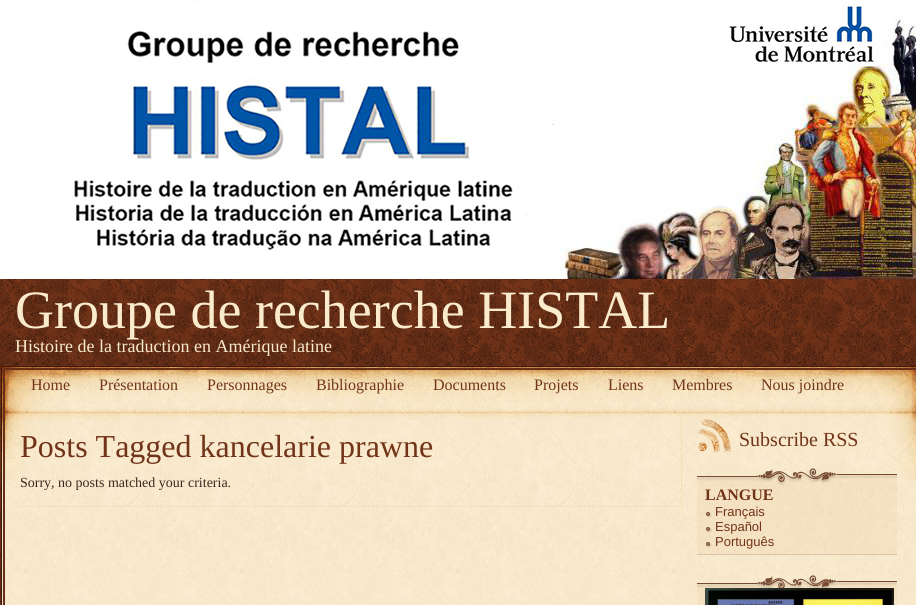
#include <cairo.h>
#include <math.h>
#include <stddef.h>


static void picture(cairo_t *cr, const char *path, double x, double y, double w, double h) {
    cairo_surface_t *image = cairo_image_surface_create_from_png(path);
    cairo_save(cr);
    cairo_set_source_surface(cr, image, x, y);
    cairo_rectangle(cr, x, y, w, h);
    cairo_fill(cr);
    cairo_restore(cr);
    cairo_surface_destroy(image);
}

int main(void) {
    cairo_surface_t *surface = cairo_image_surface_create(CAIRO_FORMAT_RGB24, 916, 605);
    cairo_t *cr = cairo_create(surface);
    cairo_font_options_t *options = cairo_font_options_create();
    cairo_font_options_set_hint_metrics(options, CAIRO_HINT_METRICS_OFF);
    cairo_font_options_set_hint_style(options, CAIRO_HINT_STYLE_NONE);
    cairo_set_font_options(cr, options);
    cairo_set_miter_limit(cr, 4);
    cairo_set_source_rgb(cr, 1, 1, 1);
    cairo_paint(cr);
    picture(cr, "img1.png", 0, 279, 916, 87);
    picture(cr, "img2.png", 0, 0, 916, 279);
    cairo_select_font_face(cr, "Liberation Serif", CAIRO_FONT_SLANT_NORMAL, CAIRO_FONT_WEIGHT_NORMAL);
    cairo_set_font_size(cr, 54);
    cairo_set_source_rgb(cr, 0.976, 0.918, 0.8);
    cairo_move_to(cr, 15, 328);
    cairo_show_text(cr, "Groupe de recherche HISTAL");
    cairo_set_font_size(cr, 18);
    cairo_move_to(cr, 15, 352);
    cairo_show_text(cr, "Histoire de la traduction en Amérique latine");
    cairo_set_source_rgb(cr, 0.973, 0.914, 0.8);
    cairo_rectangle(cr, 5, 602, 911, 3);
    cairo_fill(cr);
    picture(cr, "img3.png", 5, 480, 911, 122);
    picture(cr, "img4.png", 0, 480, 5, 125);
    picture(cr, "img5.png", 0, 366, 916, 114);
    cairo_set_font_size(cr, 16);
    cairo_set_source_rgb(cr, 0.447, 0.204, 0.098);
    cairo_move_to(cr, 31, 390);
    cairo_show_text(cr, "Home");
    cairo_move_to(cr, 99, 390);
    cairo_show_text(cr, "Présentation");
    cairo_move_to(cr, 207, 390);
    cairo_show_text(cr, "Personnages");
    cairo_move_to(cr, 316, 390);
    cairo_show_text(cr, "Bibliographie");
    cairo_move_to(cr, 433, 390);
    cairo_show_text(cr, "Documents");
    cairo_move_to(cr, 534, 390);
    cairo_show_text(cr, "Projets");
    cairo_move_to(cr, 608, 390);
    cairo_show_text(cr, "Liens");
    cairo_move_to(cr, 672, 390);
    cairo_show_text(cr, "Membres");
    cairo_move_to(cr, 761, 390);
    cairo_show_text(cr, "Nous joindre");
    cairo_new_path(cr);
    cairo_move_to(cr, 681.5, 418);
    cairo_line_to(cr, 681.5, 507);
    cairo_set_source_rgb(cr, 0.961, 0.827, 0.604);
    cairo_set_line_width(cr, 1);
    cairo_set_dash(cr, (double[]){1, 1}, 2, 0);
    cairo_stroke(cr);
    cairo_new_path(cr);
    cairo_move_to(cr, 20, 506.5);
    cairo_line_to(cr, 682, 506.5);
    cairo_stroke(cr);
    cairo_set_font_size(cr, 32);
    cairo_set_source_rgb(cr, 0.447, 0.204, 0.098);
    cairo_move_to(cr, 20, 457);
    cairo_show_text(cr, "Posts Tagged kancelarie prawne");
    cairo_set_font_size(cr, 14);
    cairo_set_source_rgb(cr, 0.231, 0.157, 0.129);
    cairo_move_to(cr, 20, 487);
    cairo_show_text(cr, "Sorry, no posts matched your criteria.");
    picture(cr, "img6.png", 697, 419, 34, 34);
    cairo_set_font_size(cr, 20);
    cairo_set_source_rgb(cr, 0.447, 0.204, 0.098);
    cairo_move_to(cr, 739, 446);
    cairo_show_text(cr, "Subscribe RSS");
    picture(cr, "img7.png", 697, 478, 200, 76);
    cairo_set_source_rgb(cr, 0.859, 0.769, 0.643);
    cairo_rectangle(cr, 697, 554, 200, 1);
    cairo_fill(cr);
    picture(cr, "img8.png", 697, 468, 200, 19);
    cairo_select_font_face(cr, "Liberation Serif", CAIRO_FONT_SLANT_NORMAL, CAIRO_FONT_WEIGHT_BOLD);
    cairo_set_font_size(cr, 16);
    cairo_set_source_rgb(cr, 0.447, 0.204, 0.098);
    cairo_move_to(cr, 705, 500);
    cairo_show_text(cr, "LANGUE");
    picture(cr, "img9.png", 706, 512, 6, 6);
    cairo_select_font_face(cr, "Liberation Sans", CAIRO_FONT_SLANT_NORMAL, CAIRO_FONT_WEIGHT_NORMAL);
    cairo_set_font_size(cr, 13);
    cairo_move_to(cr, 715, 516);
    cairo_show_text(cr, "Français");
    picture(cr, "img10.png", 706, 527, 6, 6);
    cairo_move_to(cr, 715, 531);
    cairo_show_text(cr, "Español");
    picture(cr, "img11.png", 706, 542, 6, 6);
    cairo_move_to(cr, 715, 546);
    cairo_show_text(cr, "Português");
    picture(cr, "img12.png", 697, 585, 200, 20);
    picture(cr, "img8.png", 697, 575, 200, 19);
    picture(cr, "img13.png", 705, 588, 189, 17);
    cairo_surface_write_to_png(surface, "page.png");
    cairo_font_options_destroy(options);
    cairo_destroy(cr);
    cairo_surface_destroy(surface);
    return 0;
}
